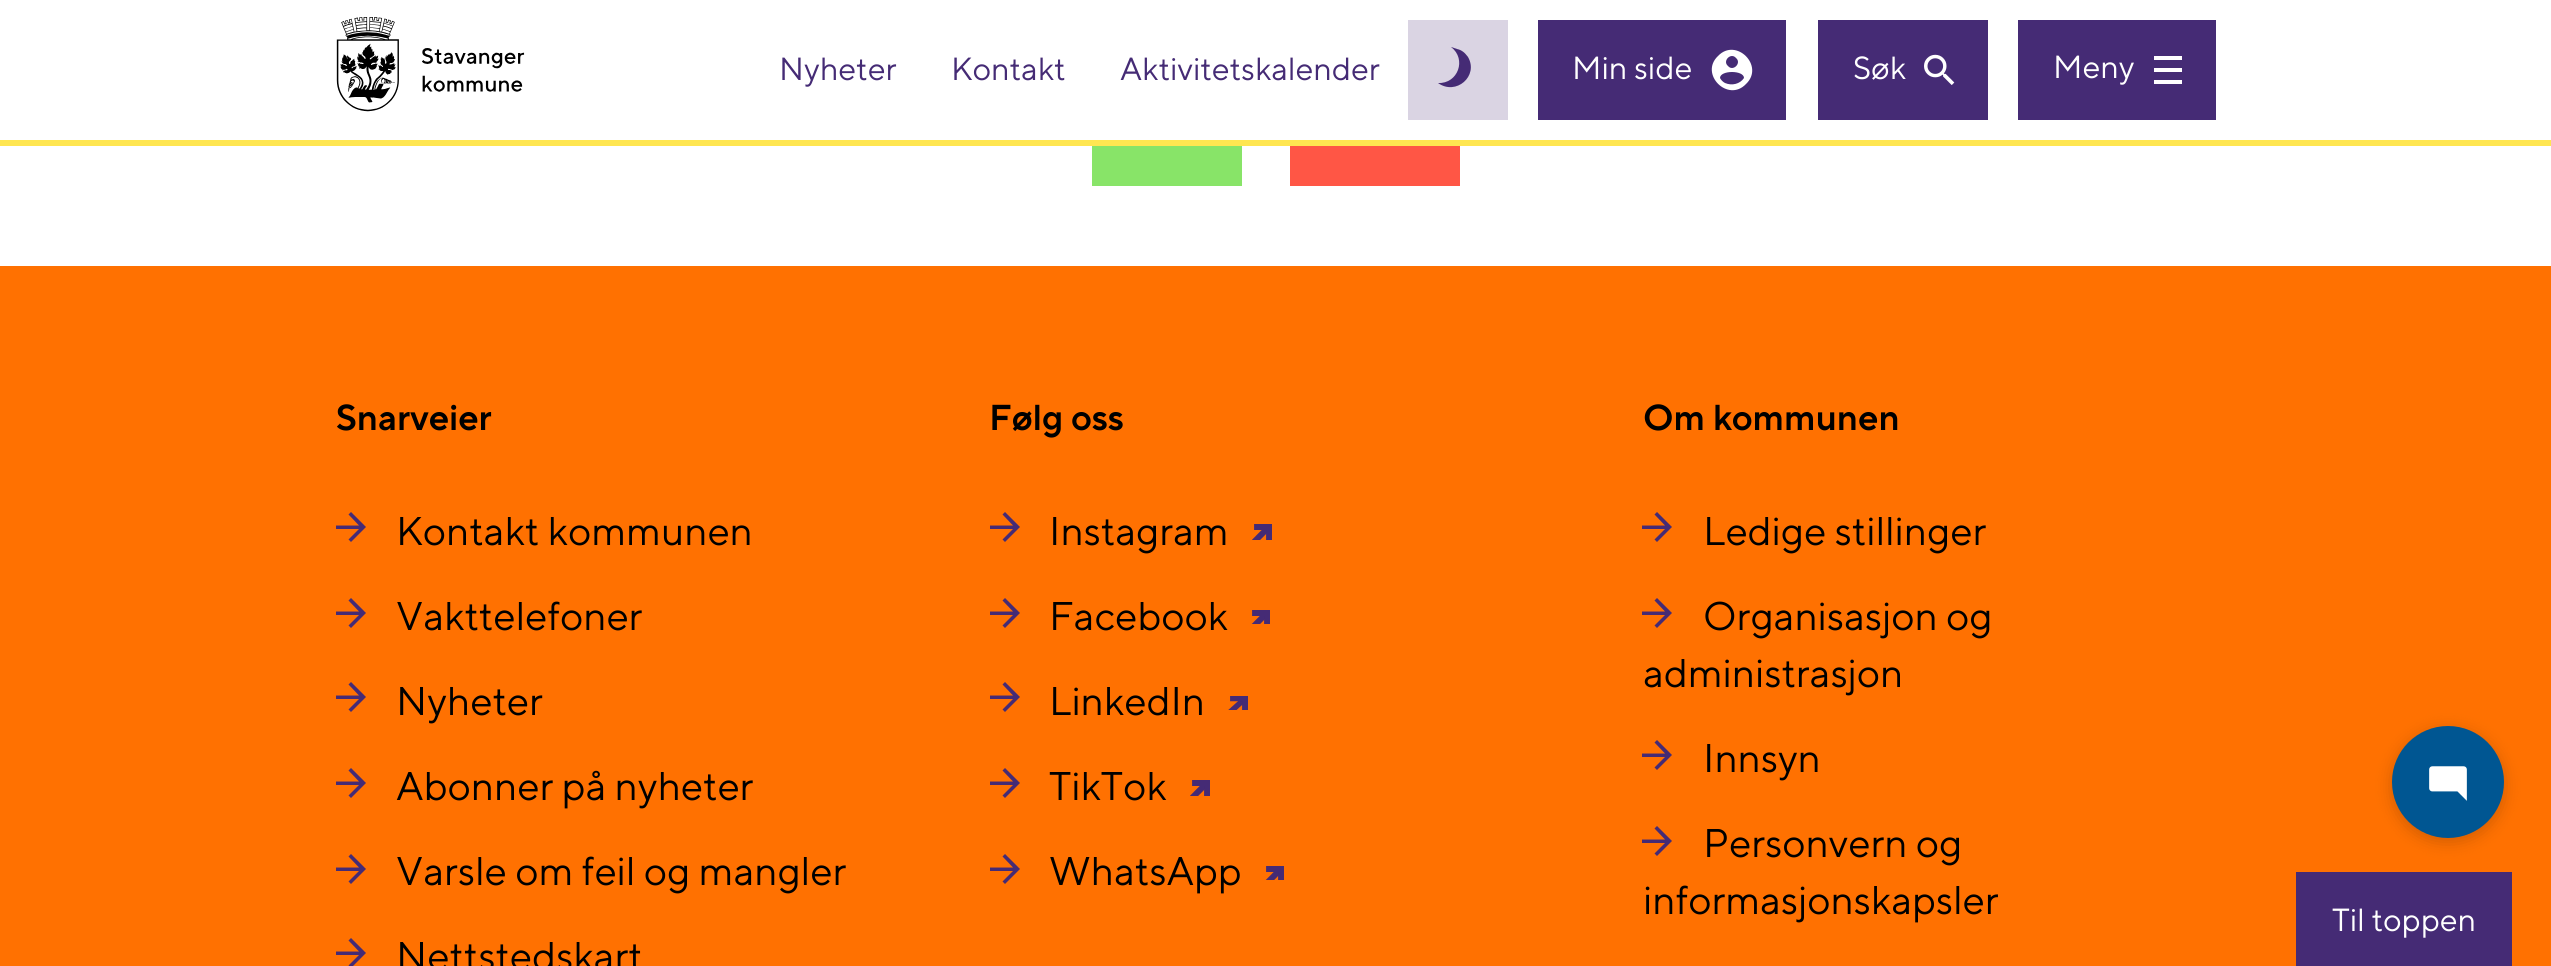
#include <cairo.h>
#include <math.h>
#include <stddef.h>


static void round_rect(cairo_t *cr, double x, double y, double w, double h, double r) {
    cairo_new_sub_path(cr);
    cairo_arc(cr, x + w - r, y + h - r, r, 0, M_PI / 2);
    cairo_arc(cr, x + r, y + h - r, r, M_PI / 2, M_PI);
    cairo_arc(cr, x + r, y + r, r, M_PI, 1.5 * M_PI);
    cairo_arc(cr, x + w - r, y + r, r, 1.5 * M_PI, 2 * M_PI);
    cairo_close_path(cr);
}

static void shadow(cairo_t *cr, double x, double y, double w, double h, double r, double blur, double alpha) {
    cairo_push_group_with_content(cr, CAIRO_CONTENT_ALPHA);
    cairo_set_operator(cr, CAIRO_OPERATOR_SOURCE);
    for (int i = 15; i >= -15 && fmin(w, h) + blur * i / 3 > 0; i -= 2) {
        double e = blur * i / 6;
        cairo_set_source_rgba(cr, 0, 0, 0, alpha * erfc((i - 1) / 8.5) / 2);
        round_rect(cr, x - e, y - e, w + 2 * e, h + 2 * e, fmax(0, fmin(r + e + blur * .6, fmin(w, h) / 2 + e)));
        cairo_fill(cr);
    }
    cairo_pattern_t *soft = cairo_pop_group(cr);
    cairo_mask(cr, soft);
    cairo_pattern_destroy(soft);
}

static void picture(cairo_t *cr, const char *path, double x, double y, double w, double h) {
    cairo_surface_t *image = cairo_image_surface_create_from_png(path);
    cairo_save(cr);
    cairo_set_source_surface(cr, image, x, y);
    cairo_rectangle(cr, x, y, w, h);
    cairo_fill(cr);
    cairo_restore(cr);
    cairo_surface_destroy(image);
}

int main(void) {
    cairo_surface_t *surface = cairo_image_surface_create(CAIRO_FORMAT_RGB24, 2551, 966);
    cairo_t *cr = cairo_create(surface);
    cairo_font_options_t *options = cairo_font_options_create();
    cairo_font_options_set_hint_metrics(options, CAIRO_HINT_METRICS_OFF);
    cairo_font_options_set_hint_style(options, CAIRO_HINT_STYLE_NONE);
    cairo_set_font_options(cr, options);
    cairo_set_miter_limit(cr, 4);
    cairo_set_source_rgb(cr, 1, 1, 1);
    cairo_paint(cr);
    cairo_set_source_rgb(cr, 1, 0.902, 0.318);
    cairo_rectangle(cr, 0, 140, 2551, 6);
    cairo_fill(cr);
    picture(cr, "img1.png", 336, 17, 189, 95);
    cairo_select_font_face(cr, "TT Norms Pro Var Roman", CAIRO_FONT_SLANT_NORMAL, CAIRO_FONT_WEIGHT_NORMAL);
    cairo_set_font_size(cr, 32);
    cairo_set_source_rgb(cr, 0.271, 0.169, 0.459);
    cairo_move_to(cr, 779, 80);
    cairo_show_text(cr, "Nyheter");
    cairo_move_to(cr, 951, 80);
    cairo_show_text(cr, "Kontakt");
    cairo_move_to(cr, 1120, 80);
    cairo_show_text(cr, "Aktivitetskalender");
    cairo_set_source_rgb(cr, 0.855, 0.831, 0.89);
    cairo_rectangle(cr, 1408, 20, 100, 100);
    cairo_fill(cr);
    cairo_set_source_rgb(cr, 0.271, 0.169, 0.459);
    cairo_new_path(cr);
    cairo_move_to(cr, 1457, 49);
    cairo_curve_to(cr, 1462, 50, 1465, 53, 1468, 57);
    cairo_curve_to(cr, 1479, 76, 1456, 96, 1438, 83);
    cairo_curve_to(cr, 1458, 84, 1467, 59, 1451, 47);
    cairo_close_path(cr);
    cairo_fill(cr);
    cairo_rectangle(cr, 1538, 20, 248, 100);
    cairo_fill(cr);
    cairo_set_source_rgb(cr, 1, 1, 1);
    cairo_move_to(cr, 1572, 79);
    cairo_show_text(cr, "Min side");
    cairo_new_path(cr);
    cairo_move_to(cr, 1718, 56);
    cairo_curve_to(cr, 1736, 37, 1765, 66, 1746, 84);
    cairo_curve_to(cr, 1728, 103, 1699, 74, 1718, 56);
    cairo_close_path(cr);
    cairo_move_to(cr, 1736, 58);
    cairo_curve_to(cr, 1731, 52, 1722, 61, 1728, 66);
    cairo_curve_to(cr, 1733, 72, 1742, 63, 1736, 58);
    cairo_close_path(cr);
    cairo_move_to(cr, 1725, 83);
    cairo_curve_to(cr, 1732, 86, 1740, 84, 1744, 78);
    cairo_curve_to(cr, 1744, 70, 1720, 70, 1720, 78);
    cairo_curve_to(cr, 1721, 80, 1723, 82, 1725, 83);
    cairo_close_path(cr);
    cairo_fill(cr);
    cairo_set_source_rgb(cr, 0.271, 0.169, 0.459);
    cairo_rectangle(cr, 1818, 20, 170, 100);
    cairo_fill(cr);
    cairo_set_source_rgb(cr, 1, 1, 1);
    cairo_move_to(cr, 1853, 79);
    cairo_show_text(cr, "Søk");
    picture(cr, "img2.png", 1924, 54, 31, 31);
    cairo_set_source_rgb(cr, 0.271, 0.169, 0.459);
    cairo_rectangle(cr, 2018, 20, 198, 100);
    cairo_fill(cr);
    cairo_set_source_rgb(cr, 1, 1, 1);
    cairo_move_to(cr, 2053, 78);
    cairo_show_text(cr, "Meny");
    cairo_rectangle(cr, 2154, 68, 28, 4);
    cairo_fill(cr);
    cairo_rectangle(cr, 2154, 56, 28, 4);
    cairo_fill(cr);
    cairo_rectangle(cr, 2154, 80, 28, 4);
    cairo_fill(cr);
    cairo_set_source_rgb(cr, 0.533, 0.894, 0.408);
    cairo_rectangle(cr, 1092, 146, 150, 40);
    cairo_fill(cr);
    cairo_set_source_rgb(cr, 1, 0.337, 0.271);
    cairo_rectangle(cr, 1290, 146, 170, 40);
    cairo_fill(cr);
    cairo_set_source_rgb(cr, 1, 0.443, 0.004);
    cairo_rectangle(cr, 0, 266, 2551, 700);
    cairo_fill(cr);
    cairo_select_font_face(cr, "TT Norms Pro Var Roman SemiBold", CAIRO_FONT_SLANT_NORMAL, CAIRO_FONT_WEIGHT_NORMAL);
    cairo_set_font_size(cr, 36);
    cairo_set_source_rgb(cr, 0, 0, 0);
    cairo_move_to(cr, 336, 430);
    cairo_show_text(cr, "Snarveier");
    cairo_set_source_rgb(cr, 0.271, 0.169, 0.459);
    cairo_new_path(cr);
    cairo_move_to(cr, 351, 512);
    cairo_line_to(cr, 366, 527);
    cairo_line_to(cr, 351, 542);
    cairo_line_to(cr, 348.5, 539.5);
    cairo_line_to(cr, 359, 529);
    cairo_line_to(cr, 336, 529);
    cairo_line_to(cr, 336, 525.5);
    cairo_line_to(cr, 359, 525.5);
    cairo_line_to(cr, 348.5, 514.5);
    cairo_close_path(cr);
    cairo_fill(cr);
    cairo_select_font_face(cr, "TT Norms Pro Var Roman", CAIRO_FONT_SLANT_NORMAL, CAIRO_FONT_WEIGHT_NORMAL);
    cairo_set_font_size(cr, 40);
    cairo_set_source_rgb(cr, 0, 0, 0);
    cairo_move_to(cr, 396, 545);
    cairo_show_text(cr, "Kontakt kommunen");
    cairo_set_source_rgb(cr, 0.271, 0.169, 0.459);
    cairo_new_path(cr);
    cairo_move_to(cr, 351, 598);
    cairo_line_to(cr, 366, 613);
    cairo_line_to(cr, 351, 628);
    cairo_line_to(cr, 348.5, 625.5);
    cairo_line_to(cr, 359, 615);
    cairo_line_to(cr, 336, 615);
    cairo_line_to(cr, 336, 611.5);
    cairo_line_to(cr, 359, 611.5);
    cairo_line_to(cr, 348.5, 600.5);
    cairo_close_path(cr);
    cairo_fill(cr);
    cairo_set_source_rgb(cr, 0, 0, 0);
    cairo_move_to(cr, 396, 630);
    cairo_show_text(cr, "Vakttelefoner");
    cairo_set_source_rgb(cr, 0.271, 0.169, 0.459);
    cairo_new_path(cr);
    cairo_move_to(cr, 351, 682);
    cairo_line_to(cr, 366, 697);
    cairo_line_to(cr, 351, 712);
    cairo_line_to(cr, 348.5, 709.5);
    cairo_line_to(cr, 359, 699);
    cairo_line_to(cr, 336, 699);
    cairo_line_to(cr, 336, 695.5);
    cairo_line_to(cr, 359, 695.5);
    cairo_line_to(cr, 348.5, 684.5);
    cairo_close_path(cr);
    cairo_fill(cr);
    cairo_set_source_rgb(cr, 0, 0, 0);
    cairo_move_to(cr, 396, 715);
    cairo_show_text(cr, "Nyheter");
    cairo_set_source_rgb(cr, 0.271, 0.169, 0.459);
    cairo_new_path(cr);
    cairo_move_to(cr, 351, 768);
    cairo_line_to(cr, 366, 783);
    cairo_line_to(cr, 351, 798);
    cairo_line_to(cr, 348.5, 795.5);
    cairo_line_to(cr, 359, 785);
    cairo_line_to(cr, 336, 785);
    cairo_line_to(cr, 336, 781.5);
    cairo_line_to(cr, 359, 781.5);
    cairo_line_to(cr, 348.5, 770.5);
    cairo_close_path(cr);
    cairo_fill(cr);
    cairo_set_source_rgb(cr, 0, 0, 0);
    cairo_move_to(cr, 396, 800);
    cairo_show_text(cr, "Abonner på nyheter");
    cairo_set_source_rgb(cr, 0.271, 0.169, 0.459);
    cairo_new_path(cr);
    cairo_move_to(cr, 351, 854);
    cairo_line_to(cr, 366, 869);
    cairo_line_to(cr, 351, 884);
    cairo_line_to(cr, 348.5, 881.5);
    cairo_line_to(cr, 359, 871);
    cairo_line_to(cr, 336, 871);
    cairo_line_to(cr, 336, 867.5);
    cairo_line_to(cr, 359, 867.5);
    cairo_line_to(cr, 348.5, 856.5);
    cairo_close_path(cr);
    cairo_fill(cr);
    cairo_set_source_rgb(cr, 0, 0, 0);
    cairo_move_to(cr, 396, 885);
    cairo_show_text(cr, "Varsle om feil og mangler");
    cairo_set_source_rgb(cr, 0.271, 0.169, 0.459);
    cairo_new_path(cr);
    cairo_move_to(cr, 351, 938);
    cairo_line_to(cr, 366, 953);
    cairo_line_to(cr, 351, 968);
    cairo_line_to(cr, 348.5, 965.5);
    cairo_line_to(cr, 359, 955);
    cairo_line_to(cr, 336, 955);
    cairo_line_to(cr, 336, 951.5);
    cairo_line_to(cr, 359, 951.5);
    cairo_line_to(cr, 348.5, 940.5);
    cairo_close_path(cr);
    cairo_fill(cr);
    cairo_set_source_rgb(cr, 0, 0, 0);
    cairo_move_to(cr, 396, 970);
    cairo_show_text(cr, "Nettstedskart");
    cairo_select_font_face(cr, "TT Norms Pro Var Roman SemiBold", CAIRO_FONT_SLANT_NORMAL, CAIRO_FONT_WEIGHT_NORMAL);
    cairo_set_font_size(cr, 36);
    cairo_move_to(cr, 989, 430);
    cairo_show_text(cr, "Følg oss");
    cairo_set_source_rgb(cr, 0.271, 0.169, 0.459);
    cairo_new_path(cr);
    cairo_move_to(cr, 1005, 512);
    cairo_line_to(cr, 1020, 527);
    cairo_line_to(cr, 1005, 542);
    cairo_line_to(cr, 1002.5, 539.5);
    cairo_line_to(cr, 1013, 529);
    cairo_line_to(cr, 990, 529);
    cairo_line_to(cr, 990, 525.5);
    cairo_line_to(cr, 1013, 525.5);
    cairo_line_to(cr, 1002.5, 514.5);
    cairo_close_path(cr);
    cairo_fill(cr);
    cairo_select_font_face(cr, "TT Norms Pro Var Roman", CAIRO_FONT_SLANT_NORMAL, CAIRO_FONT_WEIGHT_NORMAL);
    cairo_set_font_size(cr, 40);
    cairo_set_source_rgb(cr, 0, 0, 0);
    cairo_move_to(cr, 1049, 545);
    cairo_show_text(cr, "Instagram");
    picture(cr, "img3.png", 1252, 524, 20, 16);
    cairo_set_source_rgb(cr, 0.271, 0.169, 0.459);
    cairo_new_path(cr);
    cairo_move_to(cr, 1005, 598);
    cairo_line_to(cr, 1020, 613);
    cairo_line_to(cr, 1005, 628);
    cairo_line_to(cr, 1002.5, 625.5);
    cairo_line_to(cr, 1013, 615);
    cairo_line_to(cr, 990, 615);
    cairo_line_to(cr, 990, 611.5);
    cairo_line_to(cr, 1013, 611.5);
    cairo_line_to(cr, 1002.5, 600.5);
    cairo_close_path(cr);
    cairo_fill(cr);
    cairo_set_source_rgb(cr, 0, 0, 0);
    cairo_move_to(cr, 1049, 630);
    cairo_show_text(cr, "Facebook");
    picture(cr, "img4.png", 1251, 610, 19, 14);
    cairo_set_source_rgb(cr, 0.271, 0.169, 0.459);
    cairo_new_path(cr);
    cairo_move_to(cr, 1005, 682);
    cairo_line_to(cr, 1020, 697);
    cairo_line_to(cr, 1005, 712);
    cairo_line_to(cr, 1002.5, 709.5);
    cairo_line_to(cr, 1013, 699);
    cairo_line_to(cr, 990, 699);
    cairo_line_to(cr, 990, 695.5);
    cairo_line_to(cr, 1013, 695.5);
    cairo_line_to(cr, 1002.5, 684.5);
    cairo_close_path(cr);
    cairo_fill(cr);
    cairo_set_source_rgb(cr, 0, 0, 0);
    cairo_move_to(cr, 1049, 715);
    cairo_show_text(cr, "LinkedIn");
    picture(cr, "img5.png", 1228, 696, 20, 14);
    cairo_set_source_rgb(cr, 0.271, 0.169, 0.459);
    cairo_new_path(cr);
    cairo_move_to(cr, 1005, 768);
    cairo_line_to(cr, 1020, 783);
    cairo_line_to(cr, 1005, 798);
    cairo_line_to(cr, 1002.5, 795.5);
    cairo_line_to(cr, 1013, 785);
    cairo_line_to(cr, 990, 785);
    cairo_line_to(cr, 990, 781.5);
    cairo_line_to(cr, 1013, 781.5);
    cairo_line_to(cr, 1002.5, 770.5);
    cairo_close_path(cr);
    cairo_fill(cr);
    cairo_set_source_rgb(cr, 0, 0, 0);
    cairo_move_to(cr, 1049, 800);
    cairo_show_text(cr, "TikTok");
    picture(cr, "img3.png", 1190, 780, 20, 16);
    cairo_set_source_rgb(cr, 0.271, 0.169, 0.459);
    cairo_new_path(cr);
    cairo_move_to(cr, 1005, 854);
    cairo_line_to(cr, 1020, 869);
    cairo_line_to(cr, 1005, 884);
    cairo_line_to(cr, 1002.5, 881.5);
    cairo_line_to(cr, 1013, 871);
    cairo_line_to(cr, 990, 871);
    cairo_line_to(cr, 990, 867.5);
    cairo_line_to(cr, 1013, 867.5);
    cairo_line_to(cr, 1002.5, 856.5);
    cairo_close_path(cr);
    cairo_fill(cr);
    cairo_set_source_rgb(cr, 0, 0, 0);
    cairo_move_to(cr, 1049, 885);
    cairo_show_text(cr, "WhatsApp");
    picture(cr, "img6.png", 1265, 866, 19, 14);
    cairo_select_font_face(cr, "TT Norms Pro Var Roman SemiBold", CAIRO_FONT_SLANT_NORMAL, CAIRO_FONT_WEIGHT_NORMAL);
    cairo_set_font_size(cr, 36);
    cairo_move_to(cr, 1643, 430);
    cairo_show_text(cr, "Om kommunen");
    cairo_set_source_rgb(cr, 0.271, 0.169, 0.459);
    cairo_new_path(cr);
    cairo_move_to(cr, 1657, 512);
    cairo_line_to(cr, 1672, 527);
    cairo_line_to(cr, 1657, 542);
    cairo_line_to(cr, 1654.5, 539.5);
    cairo_line_to(cr, 1665, 529);
    cairo_line_to(cr, 1642, 529);
    cairo_line_to(cr, 1642, 525.5);
    cairo_line_to(cr, 1665, 525.5);
    cairo_line_to(cr, 1654.5, 514.5);
    cairo_close_path(cr);
    cairo_fill(cr);
    cairo_select_font_face(cr, "TT Norms Pro Var Roman", CAIRO_FONT_SLANT_NORMAL, CAIRO_FONT_WEIGHT_NORMAL);
    cairo_set_font_size(cr, 40);
    cairo_set_source_rgb(cr, 0, 0, 0);
    cairo_move_to(cr, 1703, 545);
    cairo_show_text(cr, "Ledige stillinger");
    cairo_set_source_rgb(cr, 0.271, 0.169, 0.459);
    cairo_new_path(cr);
    cairo_move_to(cr, 1657, 598);
    cairo_line_to(cr, 1672, 613);
    cairo_line_to(cr, 1657, 628);
    cairo_line_to(cr, 1654.5, 625.5);
    cairo_line_to(cr, 1665, 615);
    cairo_line_to(cr, 1642, 615);
    cairo_line_to(cr, 1642, 611.5);
    cairo_line_to(cr, 1665, 611.5);
    cairo_line_to(cr, 1654.5, 600.5);
    cairo_close_path(cr);
    cairo_fill(cr);
    cairo_set_source_rgb(cr, 0, 0, 0);
    cairo_move_to(cr, 1703, 630);
    cairo_show_text(cr, "Organisasjon og");
    cairo_move_to(cr, 1643, 687);
    cairo_show_text(cr, "administrasjon");
    cairo_set_source_rgb(cr, 0.271, 0.169, 0.459);
    cairo_new_path(cr);
    cairo_move_to(cr, 1657, 740);
    cairo_line_to(cr, 1672, 755);
    cairo_line_to(cr, 1657, 770);
    cairo_line_to(cr, 1654.5, 767.5);
    cairo_line_to(cr, 1665, 757);
    cairo_line_to(cr, 1642, 757);
    cairo_line_to(cr, 1642, 753.5);
    cairo_line_to(cr, 1665, 753.5);
    cairo_line_to(cr, 1654.5, 742.5);
    cairo_close_path(cr);
    cairo_fill(cr);
    cairo_set_source_rgb(cr, 0, 0, 0);
    cairo_move_to(cr, 1703, 772);
    cairo_show_text(cr, "Innsyn");
    cairo_set_source_rgb(cr, 0.271, 0.169, 0.459);
    cairo_new_path(cr);
    cairo_move_to(cr, 1657, 826);
    cairo_line_to(cr, 1672, 841);
    cairo_line_to(cr, 1657, 856);
    cairo_line_to(cr, 1654.5, 853.5);
    cairo_line_to(cr, 1665, 843);
    cairo_line_to(cr, 1642, 843);
    cairo_line_to(cr, 1642, 839.5);
    cairo_line_to(cr, 1665, 839.5);
    cairo_line_to(cr, 1654.5, 828.5);
    cairo_close_path(cr);
    cairo_fill(cr);
    cairo_set_source_rgb(cr, 0, 0, 0);
    cairo_move_to(cr, 1703, 857);
    cairo_show_text(cr, "Personvern og");
    cairo_move_to(cr, 1643, 914);
    cairo_show_text(cr, "informasjonskapsler");
    cairo_set_source_rgb(cr, 0.271, 0.169, 0.459);
    cairo_rectangle(cr, 2296, 872, 216, 94);
    cairo_fill(cr);
    cairo_set_font_size(cr, 32);
    cairo_set_source_rgb(cr, 1, 1, 1);
    cairo_move_to(cr, 2332, 931);
    cairo_show_text(cr, "Til toppen");
    cairo_set_source_rgb(cr, 0, 0, 0);
    shadow(cr, 2392, 730, 112, 112, 56, 8, 0.18);
    cairo_set_source_rgb(cr, 0, 0.337, 0.573);
    cairo_arc(cr, 2448, 782, 56, 0, 2 * M_PI);
    cairo_fill(cr);
    picture(cr, "img7.png", 2429, 766, 38, 35);
    cairo_surface_write_to_png(surface, "page.png");
    cairo_font_options_destroy(options);
    cairo_destroy(cr);
    cairo_surface_destroy(surface);
    return 0;
}
